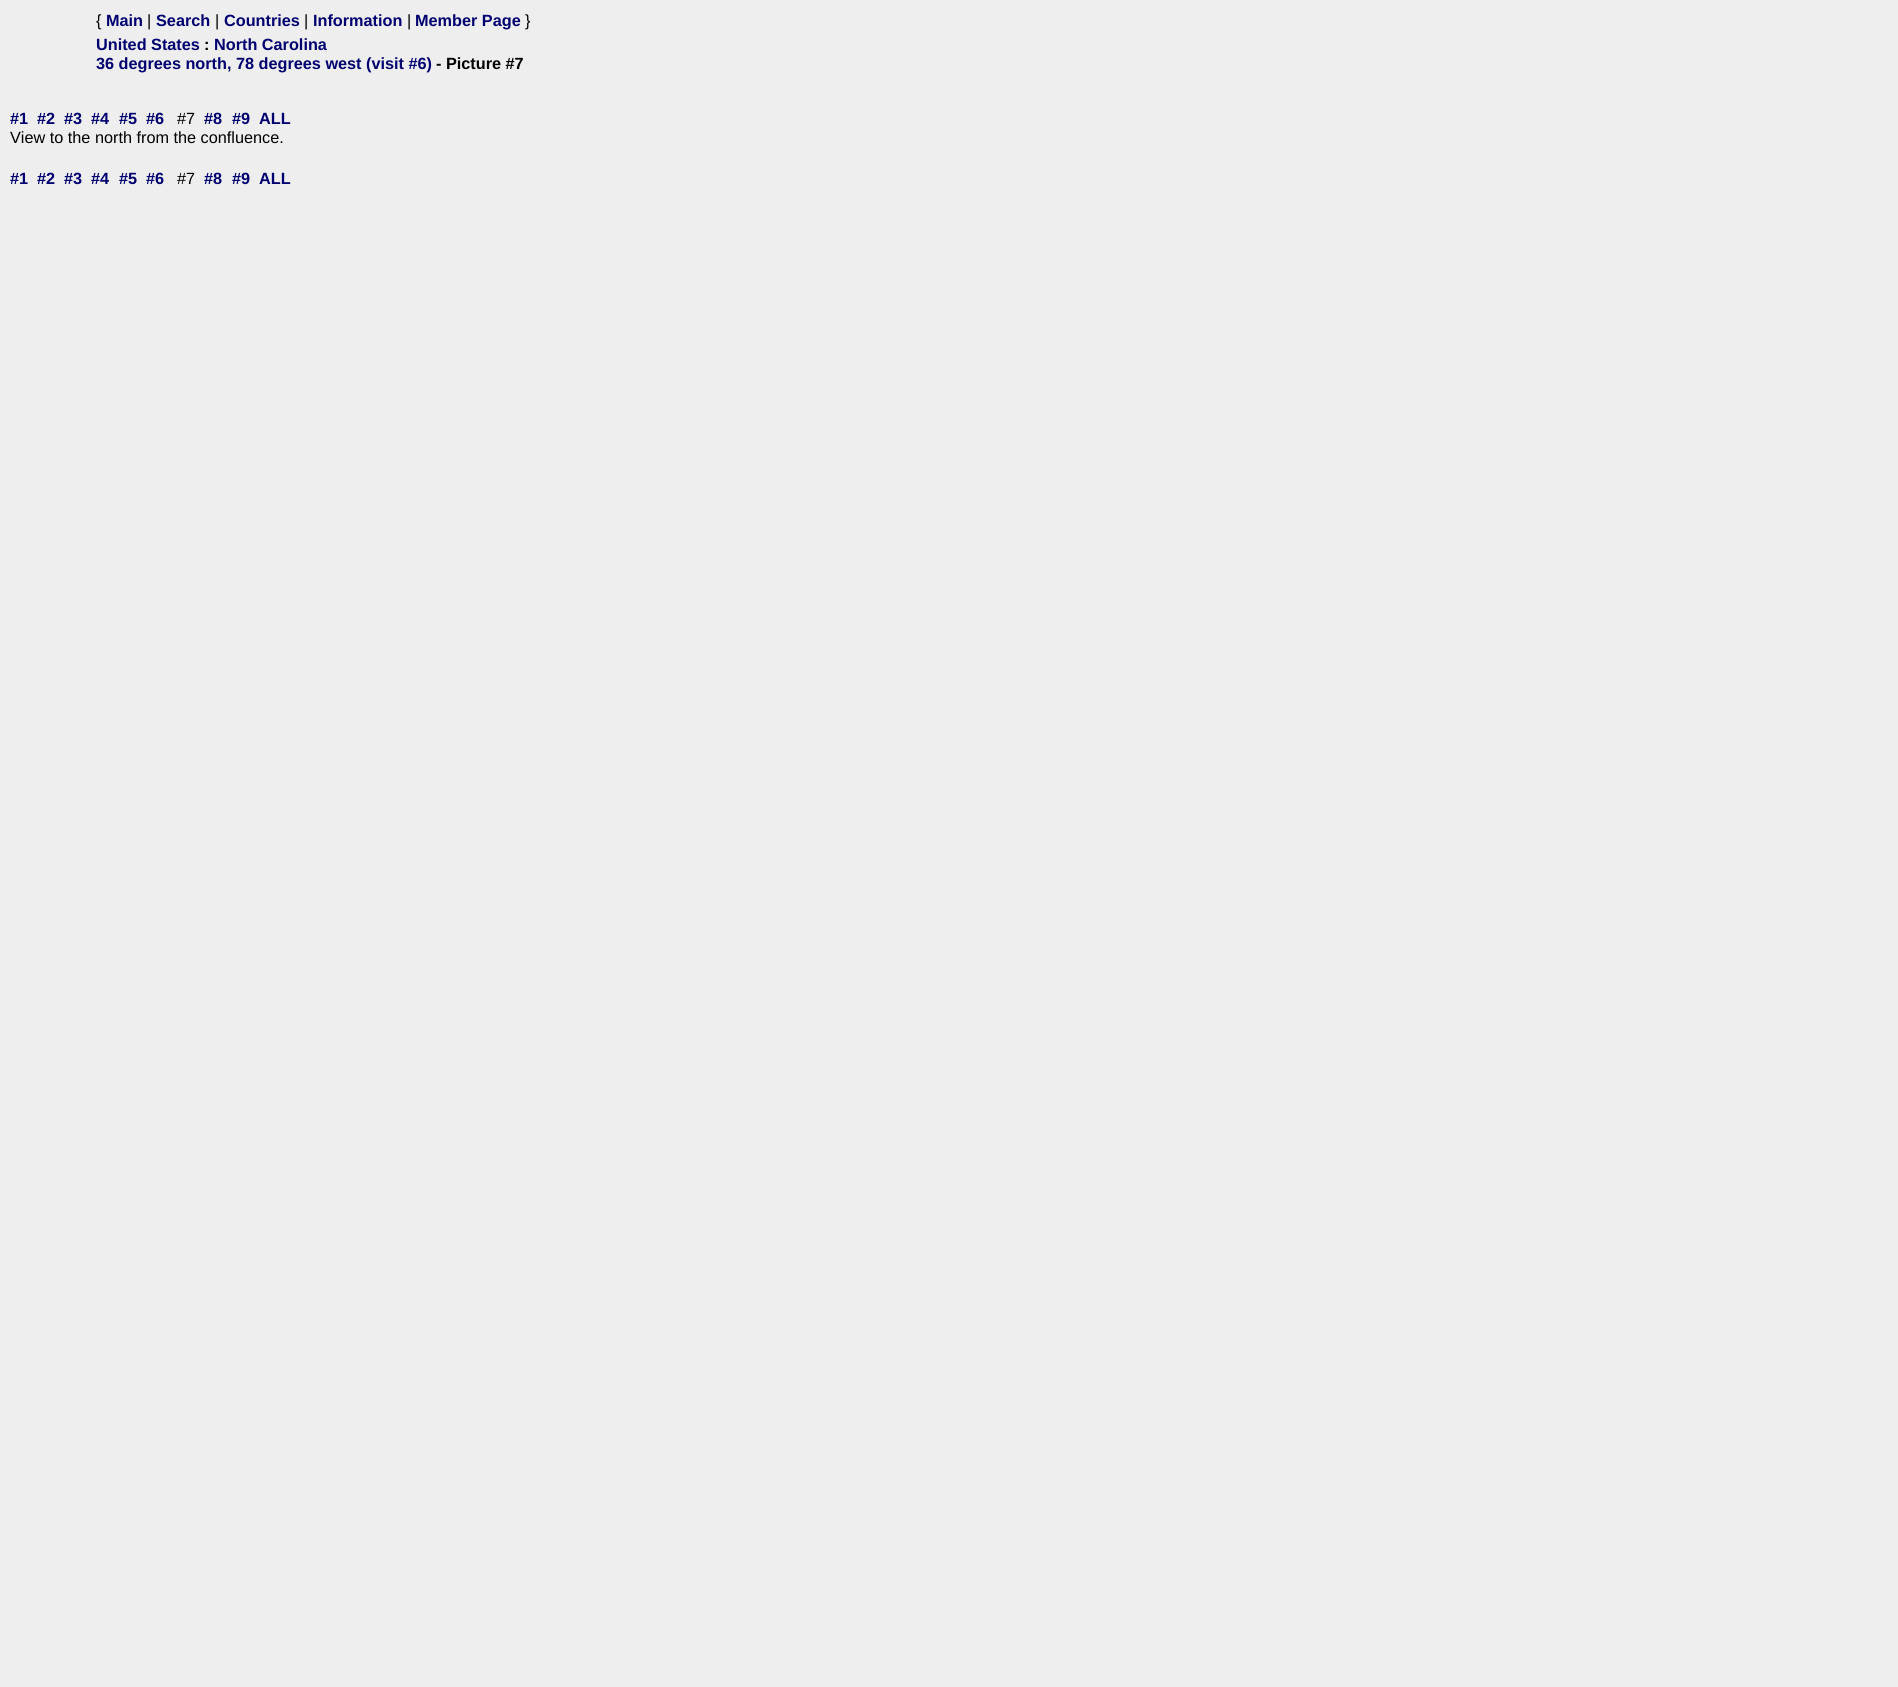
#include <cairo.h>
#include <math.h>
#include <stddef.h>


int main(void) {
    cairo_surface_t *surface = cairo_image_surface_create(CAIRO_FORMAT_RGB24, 1898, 1687);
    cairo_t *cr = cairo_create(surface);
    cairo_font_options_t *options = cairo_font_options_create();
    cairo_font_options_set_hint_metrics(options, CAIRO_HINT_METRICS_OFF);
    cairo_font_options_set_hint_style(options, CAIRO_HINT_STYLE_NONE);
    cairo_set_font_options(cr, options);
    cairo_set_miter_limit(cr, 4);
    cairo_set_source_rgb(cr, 0.933, 0.933, 0.933);
    cairo_paint(cr);
    cairo_select_font_face(cr, "Liberation Sans", CAIRO_FONT_SLANT_NORMAL, CAIRO_FONT_WEIGHT_NORMAL);
    cairo_set_font_size(cr, 16.25);
    cairo_set_source_rgb(cr, 0, 0, 0);
    cairo_move_to(cr, 96, 26);
    cairo_show_text(cr, "{");
    cairo_select_font_face(cr, "Liberation Sans", CAIRO_FONT_SLANT_NORMAL, CAIRO_FONT_WEIGHT_BOLD);
    cairo_set_source_rgb(cr, 0, 0, 0.439);
    cairo_move_to(cr, 106, 26);
    cairo_show_text(cr, "Main");
    cairo_select_font_face(cr, "Liberation Sans", CAIRO_FONT_SLANT_NORMAL, CAIRO_FONT_WEIGHT_NORMAL);
    cairo_set_source_rgb(cr, 0, 0, 0);
    cairo_move_to(cr, 147, 26);
    cairo_show_text(cr, "|");
    cairo_select_font_face(cr, "Liberation Sans", CAIRO_FONT_SLANT_NORMAL, CAIRO_FONT_WEIGHT_BOLD);
    cairo_set_source_rgb(cr, 0, 0, 0.439);
    cairo_move_to(cr, 156, 26);
    cairo_show_text(cr, "Search");
    cairo_select_font_face(cr, "Liberation Sans", CAIRO_FONT_SLANT_NORMAL, CAIRO_FONT_WEIGHT_NORMAL);
    cairo_set_source_rgb(cr, 0, 0, 0);
    cairo_move_to(cr, 215, 26);
    cairo_show_text(cr, "|");
    cairo_select_font_face(cr, "Liberation Sans", CAIRO_FONT_SLANT_NORMAL, CAIRO_FONT_WEIGHT_BOLD);
    cairo_set_source_rgb(cr, 0, 0, 0.439);
    cairo_move_to(cr, 224, 26);
    cairo_show_text(cr, "Countries");
    cairo_select_font_face(cr, "Liberation Sans", CAIRO_FONT_SLANT_NORMAL, CAIRO_FONT_WEIGHT_NORMAL);
    cairo_set_source_rgb(cr, 0, 0, 0);
    cairo_move_to(cr, 304, 26);
    cairo_show_text(cr, "|");
    cairo_select_font_face(cr, "Liberation Sans", CAIRO_FONT_SLANT_NORMAL, CAIRO_FONT_WEIGHT_BOLD);
    cairo_set_source_rgb(cr, 0, 0, 0.439);
    cairo_move_to(cr, 313, 26);
    cairo_show_text(cr, "Information");
    cairo_select_font_face(cr, "Liberation Sans", CAIRO_FONT_SLANT_NORMAL, CAIRO_FONT_WEIGHT_NORMAL);
    cairo_set_source_rgb(cr, 0, 0, 0);
    cairo_move_to(cr, 407, 26);
    cairo_show_text(cr, "|");
    cairo_select_font_face(cr, "Liberation Sans", CAIRO_FONT_SLANT_NORMAL, CAIRO_FONT_WEIGHT_BOLD);
    cairo_set_source_rgb(cr, 0, 0, 0.439);
    cairo_move_to(cr, 415, 26);
    cairo_show_text(cr, "Member Page");
    cairo_select_font_face(cr, "Liberation Sans", CAIRO_FONT_SLANT_NORMAL, CAIRO_FONT_WEIGHT_NORMAL);
    cairo_set_source_rgb(cr, 0, 0, 0);
    cairo_move_to(cr, 525, 26);
    cairo_show_text(cr, "}");
    cairo_select_font_face(cr, "Liberation Sans", CAIRO_FONT_SLANT_NORMAL, CAIRO_FONT_WEIGHT_BOLD);
    cairo_set_source_rgb(cr, 0, 0, 0.439);
    cairo_move_to(cr, 96, 50);
    cairo_show_text(cr, "United States");
    cairo_set_source_rgb(cr, 0, 0, 0);
    cairo_move_to(cr, 204, 50);
    cairo_show_text(cr, ":");
    cairo_set_source_rgb(cr, 0, 0, 0.439);
    cairo_move_to(cr, 214, 50);
    cairo_show_text(cr, "North Carolina");
    cairo_move_to(cr, 96, 69);
    cairo_show_text(cr, "36 degrees north, 78 degrees west (visit #6)");
    cairo_set_source_rgb(cr, 0, 0, 0);
    cairo_move_to(cr, 436, 69);
    cairo_show_text(cr, "- Picture #7");
    cairo_set_source_rgb(cr, 0, 0, 0.439);
    cairo_move_to(cr, 10, 124);
    cairo_show_text(cr, "#1");
    cairo_move_to(cr, 37, 124);
    cairo_show_text(cr, "#2");
    cairo_move_to(cr, 64, 124);
    cairo_show_text(cr, "#3");
    cairo_move_to(cr, 91, 124);
    cairo_show_text(cr, "#4");
    cairo_move_to(cr, 119, 124);
    cairo_show_text(cr, "#5");
    cairo_move_to(cr, 146, 124);
    cairo_show_text(cr, "#6");
    cairo_select_font_face(cr, "Liberation Sans", CAIRO_FONT_SLANT_NORMAL, CAIRO_FONT_WEIGHT_NORMAL);
    cairo_set_source_rgb(cr, 0, 0, 0);
    cairo_move_to(cr, 177, 124);
    cairo_show_text(cr, "#7");
    cairo_select_font_face(cr, "Liberation Sans", CAIRO_FONT_SLANT_NORMAL, CAIRO_FONT_WEIGHT_BOLD);
    cairo_set_source_rgb(cr, 0, 0, 0.439);
    cairo_move_to(cr, 204, 124);
    cairo_show_text(cr, "#8");
    cairo_move_to(cr, 232, 124);
    cairo_show_text(cr, "#9");
    cairo_move_to(cr, 259, 124);
    cairo_show_text(cr, "ALL");
    cairo_select_font_face(cr, "Liberation Sans", CAIRO_FONT_SLANT_NORMAL, CAIRO_FONT_WEIGHT_NORMAL);
    cairo_set_source_rgb(cr, 0, 0, 0);
    cairo_move_to(cr, 10, 143);
    cairo_show_text(cr, "View to the north from the confluence.");
    cairo_select_font_face(cr, "Liberation Sans", CAIRO_FONT_SLANT_NORMAL, CAIRO_FONT_WEIGHT_BOLD);
    cairo_set_source_rgb(cr, 0, 0, 0.439);
    cairo_move_to(cr, 10, 184);
    cairo_show_text(cr, "#1");
    cairo_move_to(cr, 37, 184);
    cairo_show_text(cr, "#2");
    cairo_move_to(cr, 64, 184);
    cairo_show_text(cr, "#3");
    cairo_move_to(cr, 91, 184);
    cairo_show_text(cr, "#4");
    cairo_move_to(cr, 119, 184);
    cairo_show_text(cr, "#5");
    cairo_move_to(cr, 146, 184);
    cairo_show_text(cr, "#6");
    cairo_select_font_face(cr, "Liberation Sans", CAIRO_FONT_SLANT_NORMAL, CAIRO_FONT_WEIGHT_NORMAL);
    cairo_set_source_rgb(cr, 0, 0, 0);
    cairo_move_to(cr, 177, 184);
    cairo_show_text(cr, "#7");
    cairo_select_font_face(cr, "Liberation Sans", CAIRO_FONT_SLANT_NORMAL, CAIRO_FONT_WEIGHT_BOLD);
    cairo_set_source_rgb(cr, 0, 0, 0.439);
    cairo_move_to(cr, 204, 184);
    cairo_show_text(cr, "#8");
    cairo_move_to(cr, 232, 184);
    cairo_show_text(cr, "#9");
    cairo_move_to(cr, 259, 184);
    cairo_show_text(cr, "ALL");
    cairo_surface_write_to_png(surface, "page.png");
    cairo_font_options_destroy(options);
    cairo_destroy(cr);
    cairo_surface_destroy(surface);
    return 0;
}
